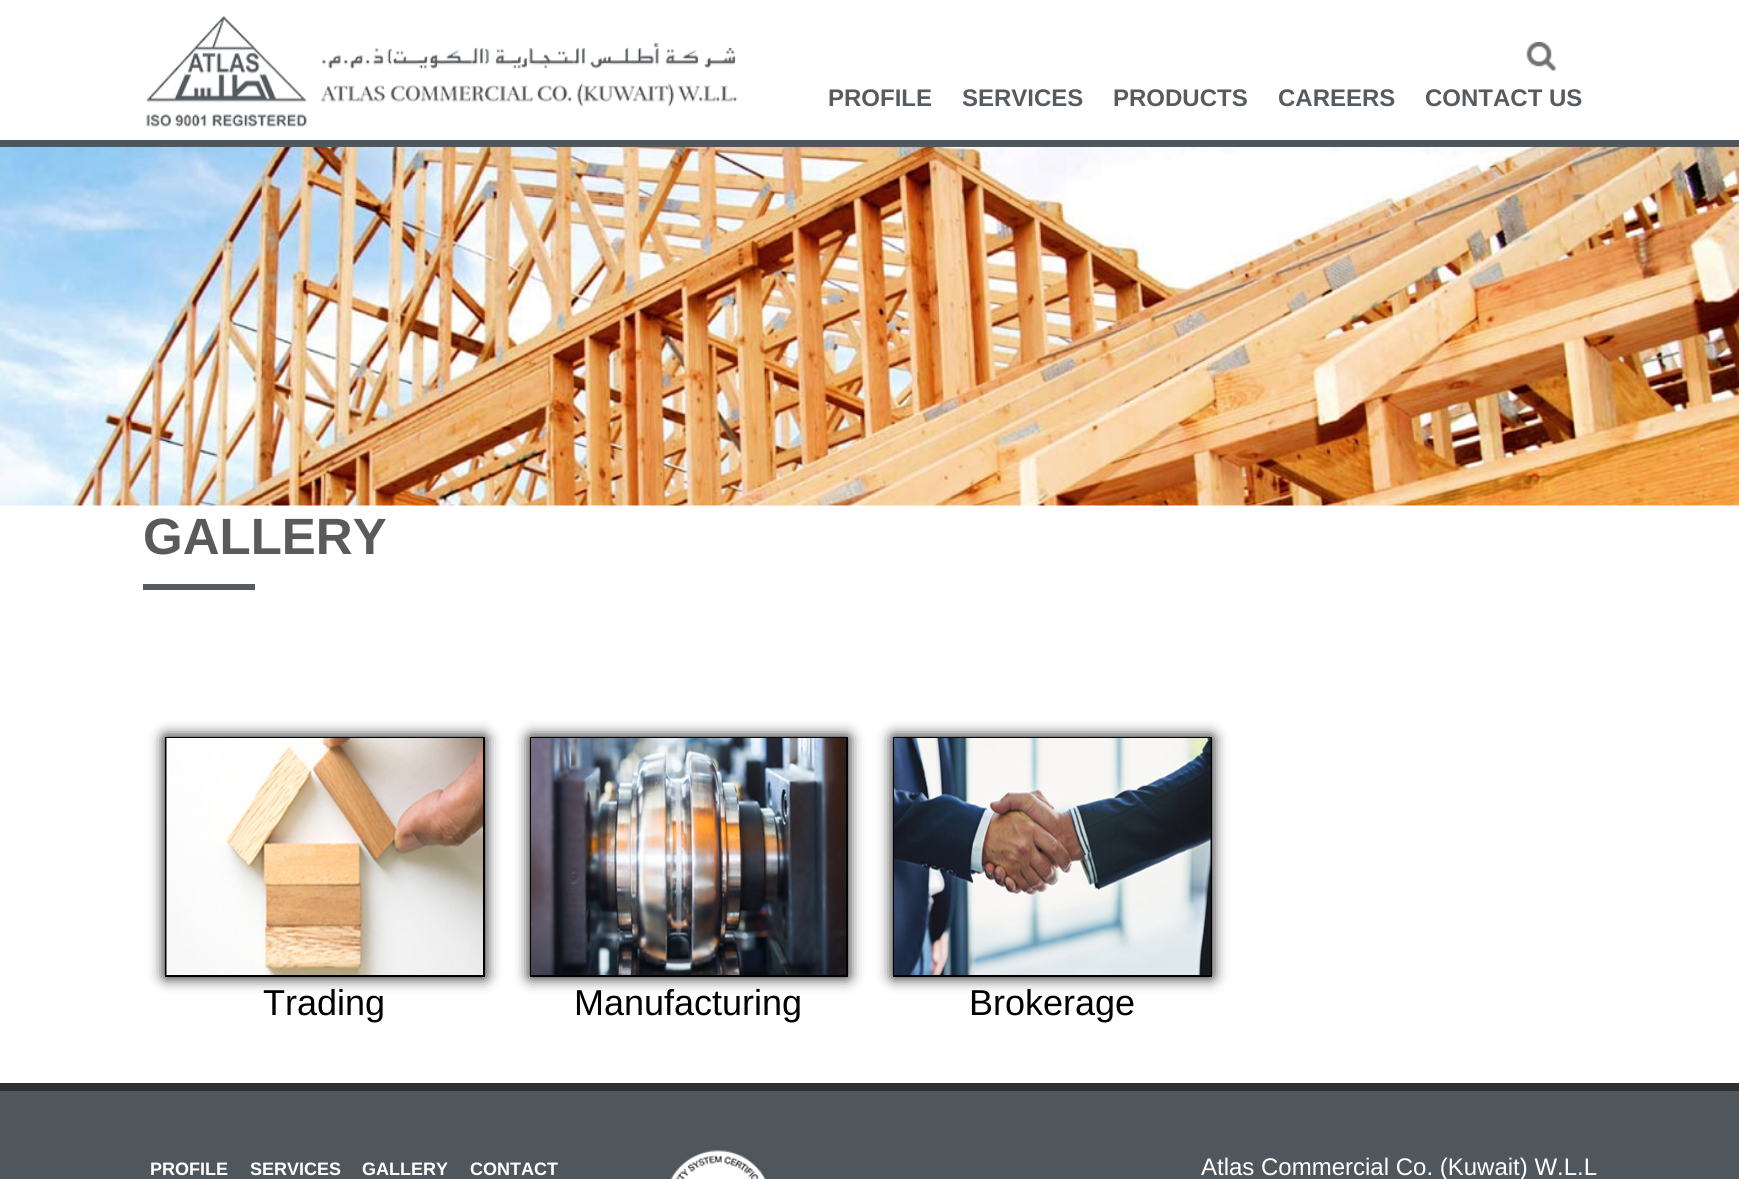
#include <cairo.h>
#include <math.h>
#include <stddef.h>


static void round_rect(cairo_t *cr, double x, double y, double w, double h, double r) {
    cairo_new_sub_path(cr);
    cairo_arc(cr, x + w - r, y + h - r, r, 0, M_PI / 2);
    cairo_arc(cr, x + r, y + h - r, r, M_PI / 2, M_PI);
    cairo_arc(cr, x + r, y + r, r, M_PI, 1.5 * M_PI);
    cairo_arc(cr, x + w - r, y + r, r, 1.5 * M_PI, 2 * M_PI);
    cairo_close_path(cr);
}

static void shadow(cairo_t *cr, double x, double y, double w, double h, double r, double blur, double alpha) {
    cairo_push_group_with_content(cr, CAIRO_CONTENT_ALPHA);
    cairo_set_operator(cr, CAIRO_OPERATOR_SOURCE);
    for (int i = 15; i >= -15 && fmin(w, h) + blur * i / 3 > 0; i -= 2) {
        double e = blur * i / 6;
        cairo_set_source_rgba(cr, 0, 0, 0, alpha * erfc((i - 1) / 8.5) / 2);
        round_rect(cr, x - e, y - e, w + 2 * e, h + 2 * e, fmax(0, fmin(r + e + blur * .6, fmin(w, h) / 2 + e)));
        cairo_fill(cr);
    }
    cairo_pattern_t *soft = cairo_pop_group(cr);
    cairo_mask(cr, soft);
    cairo_pattern_destroy(soft);
}

static void picture(cairo_t *cr, const char *path, double x, double y, double w, double h) {
    cairo_surface_t *image = cairo_image_surface_create_from_png(path);
    cairo_save(cr);
    cairo_set_source_surface(cr, image, x, y);
    cairo_rectangle(cr, x, y, w, h);
    cairo_fill(cr);
    cairo_restore(cr);
    cairo_surface_destroy(image);
}

int main(void) {
    cairo_surface_t *surface = cairo_image_surface_create(CAIRO_FORMAT_RGB24, 1739, 1179);
    cairo_t *cr = cairo_create(surface);
    cairo_font_options_t *options = cairo_font_options_create();
    cairo_font_options_set_hint_metrics(options, CAIRO_HINT_METRICS_OFF);
    cairo_font_options_set_hint_style(options, CAIRO_HINT_STYLE_NONE);
    cairo_set_font_options(cr, options);
    cairo_set_miter_limit(cr, 4);
    cairo_set_source_rgb(cr, 1, 1, 1);
    cairo_paint(cr);
    cairo_set_source_rgb(cr, 0.31, 0.341, 0.361);
    cairo_rectangle(cr, 0, 140, 1739, 7);
    cairo_fill(cr);
    picture(cr, "img1.png", 146, 15, 591, 112);
    picture(cr, "img2.png", 1526, 42, 30, 29);
    cairo_select_font_face(cr, "Liberation Sans", CAIRO_FONT_SLANT_NORMAL, CAIRO_FONT_WEIGHT_BOLD);
    cairo_set_font_size(cr, 24);
    cairo_set_source_rgb(cr, 0.337, 0.357, 0.376);
    cairo_move_to(cr, 828, 106);
    cairo_show_text(cr, "PROFILE");
    cairo_move_to(cr, 962, 106);
    cairo_show_text(cr, "SERVICES");
    cairo_move_to(cr, 1113, 106);
    cairo_show_text(cr, "PRODUCTS");
    cairo_move_to(cr, 1278, 106);
    cairo_show_text(cr, "CAREERS");
    cairo_move_to(cr, 1425, 106);
    cairo_show_text(cr, "CONTACT US");
    picture(cr, "img3.png", 0, 147, 1739, 359);
    cairo_set_font_size(cr, 51);
    cairo_set_source_rgb(cr, 0.353, 0.353, 0.353);
    cairo_move_to(cr, 143, 554);
    cairo_show_text(cr, "GALLERY");
    cairo_set_source_rgb(cr, 0.337, 0.357, 0.376);
    cairo_rectangle(cr, 143, 584, 112, 6);
    cairo_fill(cr);
    cairo_set_source_rgb(cr, 0, 0, 0);
    shadow(cr, 165, 737, 320, 240, 0, 7.5, 1);
    cairo_rectangle(cr, 166, 738, 318, 238);
    cairo_set_source_rgb(cr, 0, 0, 0);
    cairo_stroke(cr);
    picture(cr, "img4.png", 166, 738, 317, 237);
    cairo_select_font_face(cr, "Liberation Sans", CAIRO_FONT_SLANT_NORMAL, CAIRO_FONT_WEIGHT_NORMAL);
    cairo_set_font_size(cr, 36);
    cairo_move_to(cr, 263, 1015);
    cairo_show_text(cr, "Trading");
    cairo_set_source_rgb(cr, 0, 0, 0);
    shadow(cr, 530, 737, 318, 240, 0, 7.5, 1);
    cairo_rectangle(cr, 531, 738, 316, 238);
    cairo_set_source_rgb(cr, 0, 0, 0);
    cairo_stroke(cr);
    picture(cr, "img5.png", 531, 738, 315, 237);
    cairo_move_to(cr, 574, 1015);
    cairo_show_text(cr, "Manufacturing");
    cairo_set_source_rgb(cr, 0, 0, 0);
    shadow(cr, 893, 737, 319, 240, 0, 7.5, 1);
    cairo_rectangle(cr, 894, 738, 317, 238);
    cairo_set_source_rgb(cr, 0, 0, 0);
    cairo_stroke(cr);
    picture(cr, "img6.png", 894, 738, 317, 237);
    cairo_move_to(cr, 969, 1015);
    cairo_show_text(cr, "Brokerage");
    cairo_set_source_rgb(cr, 0.31, 0.341, 0.361);
    cairo_rectangle(cr, 0, 1091, 1739, 88);
    cairo_fill(cr);
    cairo_set_source_rgb(cr, 0.18, 0.184, 0.188);
    cairo_rectangle(cr, 0, 1083, 1739, 8);
    cairo_fill(cr);
    cairo_select_font_face(cr, "Liberation Sans", CAIRO_FONT_SLANT_NORMAL, CAIRO_FONT_WEIGHT_BOLD);
    cairo_set_font_size(cr, 18);
    cairo_set_source_rgb(cr, 1, 1, 1);
    cairo_move_to(cr, 150, 1175);
    cairo_show_text(cr, "PROFILE");
    cairo_move_to(cr, 250, 1175);
    cairo_show_text(cr, "SERVICES");
    cairo_move_to(cr, 362, 1175);
    cairo_show_text(cr, "GALLERY");
    cairo_move_to(cr, 470, 1175);
    cairo_show_text(cr, "CONTACT");
    picture(cr, "img7.png", 670, 1150, 96, 29);
    cairo_select_font_face(cr, "Liberation Sans", CAIRO_FONT_SLANT_NORMAL, CAIRO_FONT_WEIGHT_NORMAL);
    cairo_set_font_size(cr, 24);
    cairo_move_to(cr, 1201, 1175);
    cairo_show_text(cr, "Atlas Commercial Co. (Kuwait) W.L.L");
    cairo_surface_write_to_png(surface, "page.png");
    cairo_font_options_destroy(options);
    cairo_destroy(cr);
    cairo_surface_destroy(surface);
    return 0;
}
